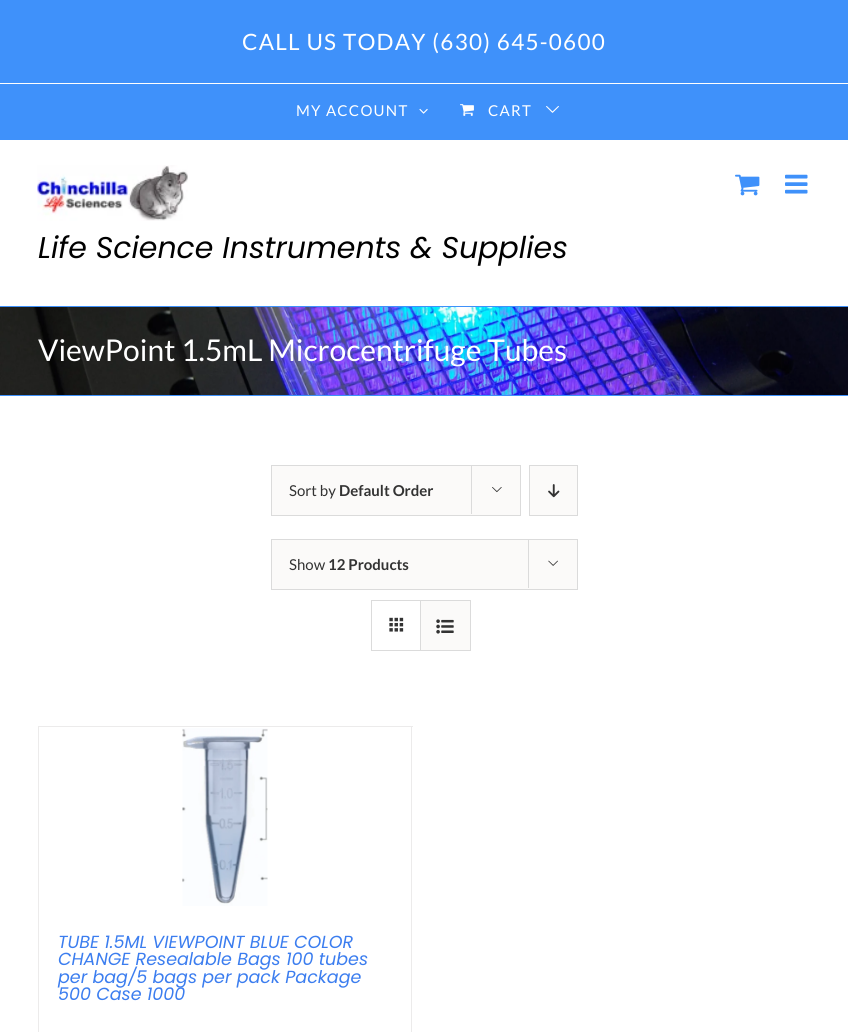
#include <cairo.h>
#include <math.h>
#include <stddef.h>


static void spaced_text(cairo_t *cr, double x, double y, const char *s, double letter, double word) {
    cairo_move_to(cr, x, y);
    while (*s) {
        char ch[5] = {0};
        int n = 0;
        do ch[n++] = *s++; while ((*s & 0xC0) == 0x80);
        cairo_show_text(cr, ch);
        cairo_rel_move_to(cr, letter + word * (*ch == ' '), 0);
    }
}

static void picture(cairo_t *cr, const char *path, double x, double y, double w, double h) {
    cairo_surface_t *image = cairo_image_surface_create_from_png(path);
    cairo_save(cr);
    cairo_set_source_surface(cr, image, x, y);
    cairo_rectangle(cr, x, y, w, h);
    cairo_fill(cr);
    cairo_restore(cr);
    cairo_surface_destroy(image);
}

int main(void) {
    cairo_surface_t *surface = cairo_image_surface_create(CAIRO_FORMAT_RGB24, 848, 1032);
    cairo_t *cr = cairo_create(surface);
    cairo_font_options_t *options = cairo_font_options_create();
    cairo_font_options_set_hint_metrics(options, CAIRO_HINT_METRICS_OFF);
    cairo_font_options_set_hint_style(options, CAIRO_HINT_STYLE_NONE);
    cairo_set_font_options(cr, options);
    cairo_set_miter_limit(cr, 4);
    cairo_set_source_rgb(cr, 1, 1, 1);
    cairo_paint(cr);
    cairo_set_source_rgb(cr, 0.247, 0.569, 0.98);
    cairo_rectangle(cr, 0, 0, 848, 140);
    cairo_fill(cr);
    cairo_set_source_rgb(cr, 1, 1, 1);
    cairo_rectangle(cr, 0, 83, 848, 1);
    cairo_fill(cr);
    cairo_select_font_face(cr, "Lato", CAIRO_FONT_SLANT_NORMAL, CAIRO_FONT_WEIGHT_NORMAL);
    cairo_set_font_size(cr, 22.5);
    spaced_text(cr, 242, 50, "CALL US TODAY (630) 645-0600", 1.25, 0);
    cairo_set_font_size(cr, 15);
    spaced_text(cr, 296, 116, "MY ACCOUNT", 1.25, 0);
    picture(cr, "img1.png", 419, 108, 9, 6);
    picture(cr, "img2.png", 460, 104, 14, 12);
    spaced_text(cr, 488, 116, "CART", 1.25, 0);
    picture(cr, "img3.png", 546, 106, 13, 7);
    picture(cr, "img4.png", 735, 174, 25, 22);
    picture(cr, "img5.png", 785, 174, 23, 20);
    picture(cr, "img6.png", 37, 165, 151, 56);
    cairo_select_font_face(cr, "Poppins", CAIRO_FONT_SLANT_ITALIC, CAIRO_FONT_WEIGHT_NORMAL);
    cairo_set_font_size(cr, 30);
    cairo_set_source_rgb(cr, 0, 0, 0);
    cairo_move_to(cr, 38, 258);
    cairo_show_text(cr, "Life Science Instruments & Supplies");
    picture(cr, "img7.png", 0, 307, 848, 88);
    cairo_set_source_rgb(cr, 0.247, 0.569, 0.98);
    cairo_rectangle(cr, 0, 306, 848, 1);
    cairo_fill(cr);
    cairo_rectangle(cr, 0, 395, 848, 1);
    cairo_fill(cr);
    cairo_select_font_face(cr, "Lato", CAIRO_FONT_SLANT_NORMAL, CAIRO_FONT_WEIGHT_NORMAL);
    cairo_set_source_rgb(cr, 1, 1, 1);
    cairo_move_to(cr, 38, 361);
    cairo_show_text(cr, "ViewPoint 1.5mL Microcentrifuge Tubes");
    cairo_set_source_rgb(cr, 0.984, 0.98, 0.976);
    cairo_rectangle(cr, 271.5, 465.5, 249, 50);
    cairo_fill_preserve(cr);
    cairo_set_source_rgb(cr, 0.859, 0.859, 0.859);
    cairo_set_line_width(cr, 1);
    cairo_stroke(cr);
    cairo_set_font_size(cr, 15);
    cairo_set_source_rgb(cr, 0.2, 0.2, 0.2);
    cairo_move_to(cr, 289, 496);
    cairo_show_text(cr, "Sort by");
    cairo_select_font_face(cr, "Lato", CAIRO_FONT_SLANT_NORMAL, CAIRO_FONT_WEIGHT_BOLD);
    cairo_move_to(cr, 339, 496);
    cairo_show_text(cr, "Default Order");
    cairo_set_source_rgb(cr, 0.859, 0.859, 0.859);
    cairo_rectangle(cr, 471, 465, 1, 49);
    cairo_fill(cr);
    picture(cr, "img8.png", 492, 487, 10, 6);
    cairo_set_source_rgb(cr, 0.984, 0.98, 0.976);
    cairo_rectangle(cr, 529.5, 465.5, 48, 50);
    cairo_fill_preserve(cr);
    cairo_set_source_rgb(cr, 0.859, 0.859, 0.859);
    cairo_stroke(cr);
    picture(cr, "img9.png", 548, 484, 12, 14);
    cairo_set_source_rgb(cr, 0.984, 0.98, 0.976);
    cairo_rectangle(cr, 271.5, 539.5, 306, 50);
    cairo_fill_preserve(cr);
    cairo_set_source_rgb(cr, 0.859, 0.859, 0.859);
    cairo_stroke(cr);
    cairo_select_font_face(cr, "Lato", CAIRO_FONT_SLANT_NORMAL, CAIRO_FONT_WEIGHT_NORMAL);
    cairo_set_source_rgb(cr, 0.2, 0.2, 0.2);
    cairo_move_to(cr, 289, 570);
    cairo_show_text(cr, "Show");
    cairo_select_font_face(cr, "Lato", CAIRO_FONT_SLANT_NORMAL, CAIRO_FONT_WEIGHT_BOLD);
    cairo_move_to(cr, 328, 570);
    cairo_show_text(cr, "12 Products");
    cairo_set_source_rgb(cr, 0.859, 0.859, 0.859);
    cairo_rectangle(cr, 528, 539, 1, 49);
    cairo_fill(cr);
    picture(cr, "img10.png", 548, 560, 10, 6);
    cairo_rectangle(cr, 371.5, 600.5, 99, 50);
    cairo_stroke(cr);
    cairo_rectangle(cr, 420, 601, 1, 49);
    cairo_fill(cr);
    picture(cr, "img11.png", 389, 617, 15, 15);
    cairo_set_source_rgb(cr, 0.984, 0.98, 0.976);
    cairo_rectangle(cr, 421, 601, 49, 49);
    cairo_fill(cr);
    picture(cr, "img12.png", 436, 619, 18, 15);
    cairo_set_source_rgb(cr, 0.922, 0.918, 0.918);
    cairo_rectangle(cr, 38, 726, 375, 1);
    cairo_fill(cr);
    cairo_rectangle(cr, 411, 726, 1, 306);
    cairo_fill(cr);
    cairo_rectangle(cr, 38, 726, 1, 306);
    cairo_fill(cr);
    picture(cr, "img13.png", 182, 728, 86, 178);
    cairo_select_font_face(cr, "Poppins", CAIRO_FONT_SLANT_ITALIC, CAIRO_FONT_WEIGHT_NORMAL);
    cairo_set_font_size(cr, 17.5);
    cairo_set_source_rgb(cr, 0.231, 0.49, 0.937);
    cairo_move_to(cr, 58, 948);
    cairo_show_text(cr, "TUBE 1.5ML VIEWPOINT BLUE COLOR");
    cairo_move_to(cr, 58, 965);
    cairo_show_text(cr, "CHANGE Resealable Bags 100 tubes");
    cairo_move_to(cr, 58, 983);
    cairo_show_text(cr, "per bag/5 bags per pack Package");
    cairo_move_to(cr, 58, 1000);
    cairo_show_text(cr, "500 Case 1000");
    cairo_surface_write_to_png(surface, "page.png");
    cairo_font_options_destroy(options);
    cairo_destroy(cr);
    cairo_surface_destroy(surface);
    return 0;
}
